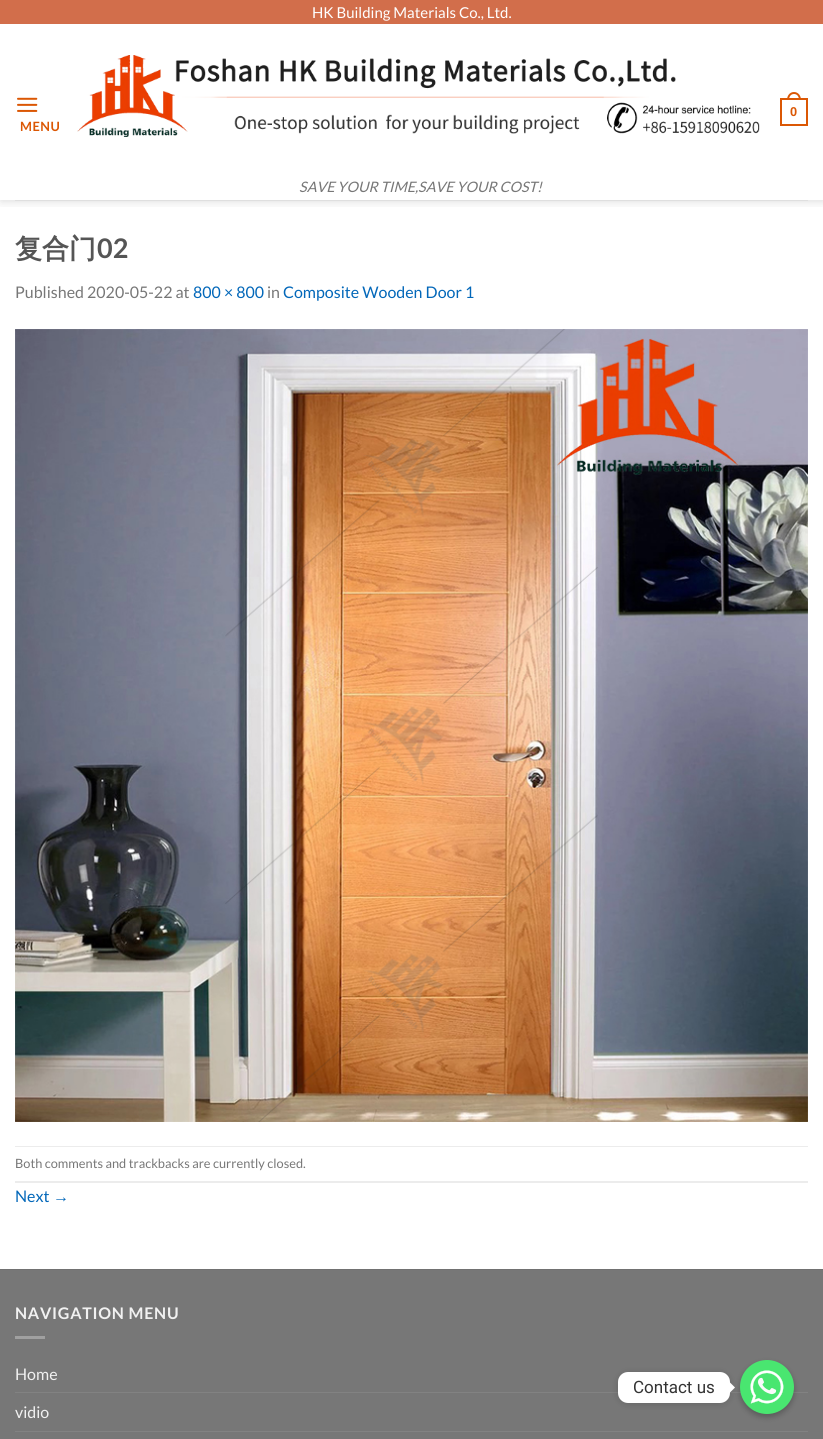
#include <cairo.h>
#include <math.h>
#include <stddef.h>


static void spaced_text(cairo_t *cr, double x, double y, const char *s, double letter, double word) {
    cairo_move_to(cr, x, y);
    while (*s) {
        char ch[5] = {0};
        int n = 0;
        do ch[n++] = *s++; while ((*s & 0xC0) == 0x80);
        cairo_show_text(cr, ch);
        cairo_rel_move_to(cr, letter + word * (*ch == ' '), 0);
    }
}

static void round_rect(cairo_t *cr, double x, double y, double w, double h, double r) {
    cairo_new_sub_path(cr);
    cairo_arc(cr, x + w - r, y + h - r, r, 0, M_PI / 2);
    cairo_arc(cr, x + r, y + h - r, r, M_PI / 2, M_PI);
    cairo_arc(cr, x + r, y + r, r, M_PI, 1.5 * M_PI);
    cairo_arc(cr, x + w - r, y + r, r, 1.5 * M_PI, 2 * M_PI);
    cairo_close_path(cr);
}

static void shadow(cairo_t *cr, double x, double y, double w, double h, double r, double blur, double alpha) {
    cairo_push_group_with_content(cr, CAIRO_CONTENT_ALPHA);
    cairo_set_operator(cr, CAIRO_OPERATOR_SOURCE);
    for (int i = 15; i >= -15 && fmin(w, h) + blur * i / 3 > 0; i -= 2) {
        double e = blur * i / 6;
        cairo_set_source_rgba(cr, 0, 0, 0, alpha * erfc((i - 1) / 8.5) / 2);
        round_rect(cr, x - e, y - e, w + 2 * e, h + 2 * e, fmax(0, fmin(r + e + blur * .6, fmin(w, h) / 2 + e)));
        cairo_fill(cr);
    }
    cairo_pattern_t *soft = cairo_pop_group(cr);
    cairo_mask(cr, soft);
    cairo_pattern_destroy(soft);
}

static void picture(cairo_t *cr, const char *path, double x, double y, double w, double h) {
    cairo_surface_t *image = cairo_image_surface_create_from_png(path);
    cairo_save(cr);
    cairo_set_source_surface(cr, image, x, y);
    cairo_rectangle(cr, x, y, w, h);
    cairo_fill(cr);
    cairo_restore(cr);
    cairo_surface_destroy(image);
}

int main(void) {
    cairo_surface_t *surface = cairo_image_surface_create(CAIRO_FORMAT_RGB24, 823, 1439);
    cairo_t *cr = cairo_create(surface);
    cairo_font_options_t *options = cairo_font_options_create();
    cairo_font_options_set_hint_metrics(options, CAIRO_HINT_METRICS_OFF);
    cairo_font_options_set_hint_style(options, CAIRO_HINT_STYLE_NONE);
    cairo_set_font_options(cr, options);
    cairo_set_miter_limit(cr, 4);
    cairo_set_source_rgb(cr, 1, 1, 1);
    cairo_paint(cr);
    cairo_save(cr);
    cairo_rectangle(cr, 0, 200, 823, 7);
    cairo_clip(cr);
    cairo_set_source_rgb(cr, 0, 0, 0);
    shadow(cr, 1, 1, 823, 200, 0, 5, 0.15);
    cairo_restore(cr);
    cairo_set_source_rgb(cr, 0.824, 0.431, 0.294);
    cairo_rectangle(cr, 0, 0, 823, 24);
    cairo_fill(cr);
    cairo_select_font_face(cr, "Lato", CAIRO_FONT_SLANT_NORMAL, CAIRO_FONT_WEIGHT_NORMAL);
    cairo_set_font_size(cr, 15);
    cairo_set_source_rgb(cr, 1, 1, 1);
    cairo_move_to(cr, 312, 18);
    cairo_show_text(cr, "HK Building Materials Co., Ltd.");
    cairo_rectangle(cr, 781, 99, 26, 26);
    cairo_set_source_rgb(cr, 0.859, 0.341, 0.016);
    cairo_stroke(cr);
    cairo_set_fill_rule(cr, CAIRO_FILL_RULE_EVEN_ODD);
    cairo_new_path(cr);
    cairo_move_to(cr, 794, 92);
    cairo_curve_to(cr, 798.5, 92, 801, 96, 801, 100);
    cairo_line_to(cr, 787, 100);
    cairo_curve_to(cr, 787, 96, 789.5, 92, 794, 92);
    cairo_close_path(cr);
    cairo_move_to(cr, 794, 94);
    cairo_curve_to(cr, 797.5, 94, 799, 97, 799, 100);
    cairo_line_to(cr, 789, 100);
    cairo_curve_to(cr, 789, 97, 790.5, 94, 794, 94);
    cairo_close_path(cr);
    cairo_fill(cr);
    cairo_select_font_face(cr, "Liberation Sans", CAIRO_FONT_SLANT_NORMAL, CAIRO_FONT_WEIGHT_BOLD);
    cairo_set_font_size(cr, 12.8);
    cairo_move_to(cr, 790, 116);
    cairo_show_text(cr, "0");
    picture(cr, "img1.png", 17, 97, 21, 15);
    cairo_select_font_face(cr, "Lato", CAIRO_FONT_SLANT_NORMAL, CAIRO_FONT_WEIGHT_BOLD);
    spaced_text(cr, 20, 131, "MENU", 0.5, 0);
    picture(cr, "img2.png", 77, 55, 683, 82);
    cairo_select_font_face(cr, "Lato", CAIRO_FONT_SLANT_ITALIC, CAIRO_FONT_WEIGHT_NORMAL);
    cairo_set_font_size(cr, 14.4);
    cairo_set_source_rgb(cr, 0.467, 0.467, 0.467);
    cairo_move_to(cr, 299, 192);
    cairo_show_text(cr, "SAVE YOUR TIME,SAVE YOUR COST!");
    cairo_set_source_rgb(cr, 0.875, 0.875, 0.875);
    cairo_rectangle(cr, 15, 200, 793, 1);
    cairo_fill(cr);
    cairo_select_font_face(cr, "WenQuanYi Zen Hei", CAIRO_FONT_SLANT_NORMAL, CAIRO_FONT_WEIGHT_BOLD);
    cairo_set_font_size(cr, 27);
    cairo_set_source_rgb(cr, 0.333, 0.333, 0.333);
    cairo_move_to(cr, 15, 258);
    cairo_show_text(cr, "复合门");
    cairo_select_font_face(cr, "Lato", CAIRO_FONT_SLANT_NORMAL, CAIRO_FONT_WEIGHT_BOLD);
    cairo_move_to(cr, 97, 258);
    cairo_show_text(cr, "02");
    cairo_select_font_face(cr, "Lato", CAIRO_FONT_SLANT_NORMAL, CAIRO_FONT_WEIGHT_NORMAL);
    cairo_set_font_size(cr, 16);
    cairo_set_source_rgb(cr, 0.467, 0.467, 0.467);
    cairo_move_to(cr, 15, 298);
    cairo_show_text(cr, "Published 2020-05-22 at");
    cairo_set_source_rgb(cr, 0.008, 0.404, 0.725);
    cairo_move_to(cr, 193, 298);
    cairo_show_text(cr, "800 × 800");
    cairo_set_source_rgb(cr, 0.467, 0.467, 0.467);
    cairo_move_to(cr, 267, 298);
    cairo_show_text(cr, "in");
    cairo_set_source_rgb(cr, 0.008, 0.404, 0.725);
    cairo_move_to(cr, 283, 298);
    cairo_show_text(cr, "Composite Wooden Door 1");
    picture(cr, "img3.png", 15, 329, 793, 793);
    cairo_set_source_rgb(cr, 0.925, 0.925, 0.925);
    cairo_rectangle(cr, 15, 1146, 793, 1);
    cairo_fill(cr);
    cairo_rectangle(cr, 15, 1181, 793, 2);
    cairo_fill(cr);
    cairo_set_font_size(cr, 12.8);
    cairo_set_source_rgb(cr, 0.467, 0.467, 0.467);
    cairo_move_to(cr, 15, 1168);
    cairo_show_text(cr, "Both comments and trackbacks are currently closed.");
    cairo_set_font_size(cr, 16);
    cairo_set_source_rgb(cr, 0.008, 0.404, 0.725);
    cairo_move_to(cr, 15, 1202);
    cairo_show_text(cr, "Next");
    cairo_select_font_face(cr, "Liberation Sans", CAIRO_FONT_SLANT_NORMAL, CAIRO_FONT_WEIGHT_NORMAL);
    cairo_move_to(cr, 53, 1202);
    cairo_show_text(cr, "→");
    cairo_set_source_rgb(cr, 0.467, 0.467, 0.467);
    cairo_rectangle(cr, 0, 1270, 823, 169);
    cairo_fill(cr);
    cairo_set_source_rgb(cr, 0.443, 0.443, 0.443);
    cairo_rectangle(cr, 0, 1269, 823, 1);
    cairo_fill(cr);
    cairo_select_font_face(cr, "Lato", CAIRO_FONT_SLANT_NORMAL, CAIRO_FONT_WEIGHT_BOLD);
    cairo_set_source_rgb(cr, 0.945, 0.945, 0.945);
    spaced_text(cr, 15, 1319, "NAVIGATION MENU", 0.75, 0);
    cairo_set_source_rgb(cr, 0.627, 0.627, 0.627);
    cairo_rectangle(cr, 15, 1336, 30, 3);
    cairo_fill(cr);
    cairo_select_font_face(cr, "Lato", CAIRO_FONT_SLANT_NORMAL, CAIRO_FONT_WEIGHT_NORMAL);
    cairo_set_source_rgb(cr, 0.945, 0.945, 0.945);
    cairo_move_to(cr, 15, 1380);
    cairo_show_text(cr, "Home");
    cairo_set_source_rgb(cr, 0.51, 0.51, 0.51);
    cairo_rectangle(cr, 15, 1392, 793, 1);
    cairo_fill(cr);
    cairo_set_source_rgb(cr, 0.945, 0.945, 0.945);
    cairo_move_to(cr, 15, 1418);
    cairo_show_text(cr, "vidio");
    cairo_set_source_rgb(cr, 0.51, 0.51, 0.51);
    cairo_rectangle(cr, 15, 1431, 793, 1);
    cairo_fill(cr);
    cairo_set_source_rgb(cr, 0, 0, 0);
    shadow(cr, 740, 1363, 54, 54, 27, 3, 0.25);
    picture(cr, "img4.png", 740, 1360, 54, 54);
    shadow(cr, 618, 1373, 112, 31, 10, 4, 0.15);
    cairo_set_source_rgb(cr, 1, 1, 1);
    round_rect(cr, 618, 1372, 112, 31, 10);
    cairo_fill(cr);
    cairo_select_font_face(cr, "Roboto", CAIRO_FONT_SLANT_NORMAL, CAIRO_FONT_WEIGHT_NORMAL);
    cairo_set_font_size(cr, 17);
    cairo_set_source_rgb(cr, 0.2, 0.2, 0.2);
    cairo_move_to(cr, 633, 1393);
    cairo_show_text(cr, "Contact us");
    cairo_set_source_rgb(cr, 1, 1, 1);
    cairo_set_fill_rule(cr, CAIRO_FILL_RULE_WINDING);
    cairo_new_path(cr);
    cairo_move_to(cr, 730, 1392.5);
    cairo_line_to(cr, 730, 1382.5);
    cairo_line_to(cr, 735, 1387.5);
    cairo_close_path(cr);
    cairo_fill(cr);
    cairo_surface_write_to_png(surface, "page.png");
    cairo_font_options_destroy(options);
    cairo_destroy(cr);
    cairo_surface_destroy(surface);
    return 0;
}
